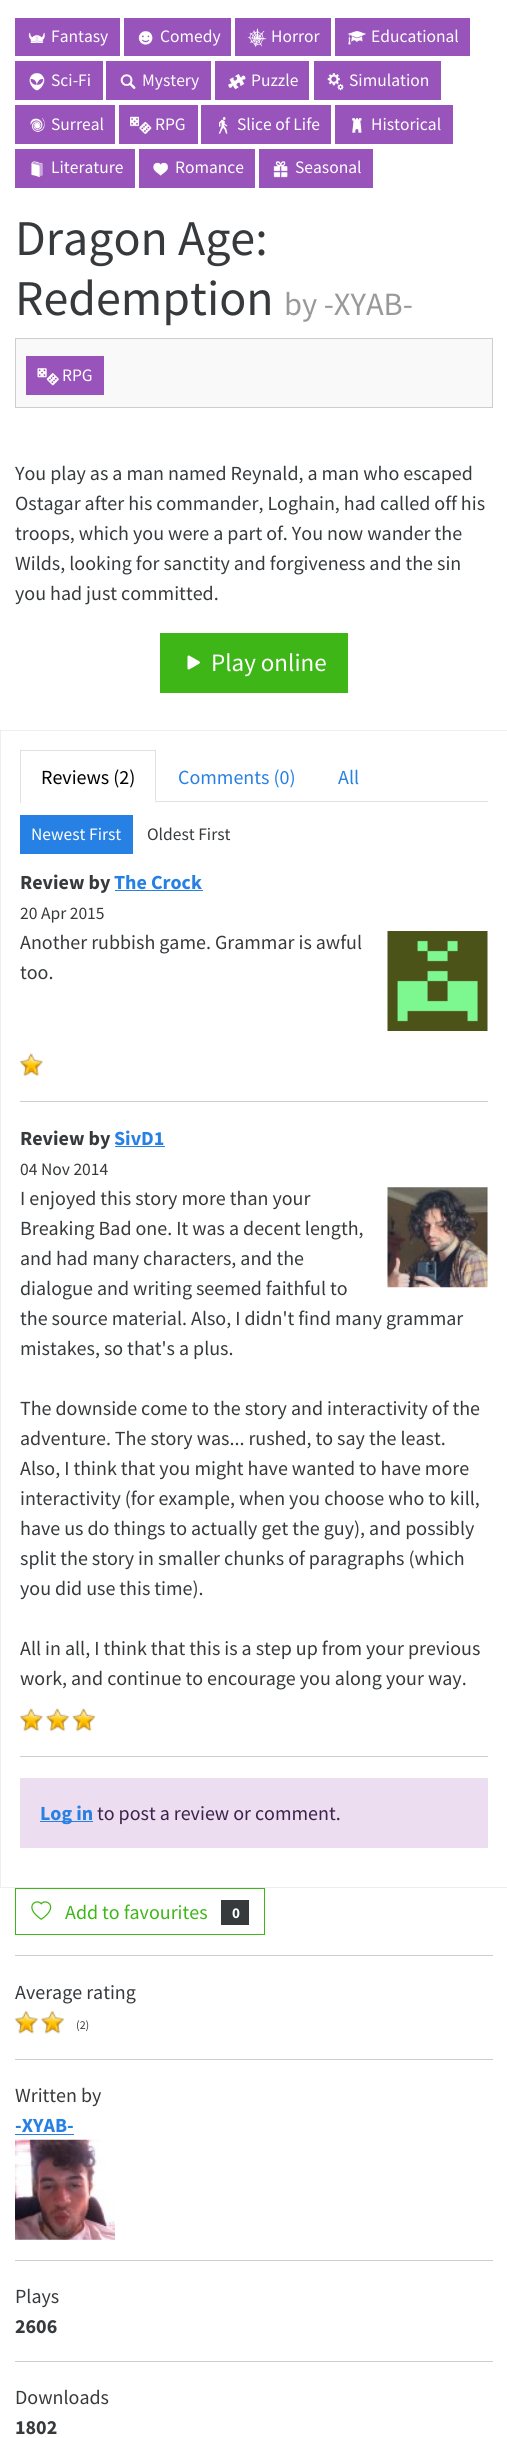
#include <cairo.h>
#include <math.h>
#include <stddef.h>


static void picture(cairo_t *cr, const char *path, double x, double y, double w, double h) {
    cairo_surface_t *image = cairo_image_surface_create_from_png(path);
    cairo_save(cr);
    cairo_set_source_surface(cr, image, x, y);
    cairo_rectangle(cr, x, y, w, h);
    cairo_fill(cr);
    cairo_restore(cr);
    cairo_surface_destroy(image);
}

int main(void) {
    cairo_surface_t *surface = cairo_image_surface_create(CAIRO_FORMAT_RGB24, 507, 2438);
    cairo_t *cr = cairo_create(surface);
    cairo_font_options_t *options = cairo_font_options_create();
    cairo_font_options_set_hint_metrics(options, CAIRO_HINT_METRICS_OFF);
    cairo_font_options_set_hint_style(options, CAIRO_HINT_STYLE_NONE);
    cairo_set_font_options(cr, options);
    cairo_set_miter_limit(cr, 4);
    cairo_set_source_rgb(cr, 1, 1, 1);
    cairo_paint(cr);
    cairo_set_source_rgb(cr, 0.6, 0.329, 0.733);
    cairo_rectangle(cr, 15, 18, 105, 38);
    cairo_fill(cr);
    picture(cr, "img1.png", 28, 32, 17, 11);
    cairo_select_font_face(cr, "Source Sans Pro", CAIRO_FONT_SLANT_NORMAL, CAIRO_FONT_WEIGHT_NORMAL);
    cairo_set_font_size(cr, 17.5);
    cairo_set_source_rgb(cr, 1, 1, 1);
    cairo_move_to(cr, 51, 42);
    cairo_show_text(cr, "Fantasy");
    cairo_set_source_rgb(cr, 0.6, 0.329, 0.733);
    cairo_rectangle(cr, 124, 18, 107, 38);
    cairo_fill(cr);
    picture(cr, "img2.png", 138, 31, 15, 14);
    cairo_set_source_rgb(cr, 1, 1, 1);
    cairo_move_to(cr, 160, 42);
    cairo_show_text(cr, "Comedy");
    cairo_set_source_rgb(cr, 0.6, 0.329, 0.733);
    cairo_rectangle(cr, 235, 18, 96, 38);
    cairo_fill(cr);
    picture(cr, "img3.png", 247, 28, 20, 20);
    cairo_set_source_rgb(cr, 1, 1, 1);
    cairo_move_to(cr, 271, 42);
    cairo_show_text(cr, "Horror");
    cairo_set_source_rgb(cr, 0.6, 0.329, 0.733);
    cairo_rectangle(cr, 335, 18, 135, 38);
    cairo_fill(cr);
    picture(cr, "img4.png", 347, 31, 19, 14);
    cairo_set_source_rgb(cr, 1, 1, 1);
    cairo_move_to(cr, 371, 42);
    cairo_show_text(cr, "Educational");
    cairo_set_source_rgb(cr, 0.6, 0.329, 0.733);
    cairo_rectangle(cr, 15, 61, 88, 39);
    cairo_fill(cr);
    picture(cr, "img5.png", 29, 73, 16, 18);
    cairo_set_source_rgb(cr, 1, 1, 1);
    cairo_move_to(cr, 51, 86);
    cairo_show_text(cr, "Sci-Fi");
    cairo_set_source_rgb(cr, 0.6, 0.329, 0.733);
    cairo_rectangle(cr, 106, 61, 105, 39);
    cairo_fill(cr);
    picture(cr, "img6.png", 120, 74, 16, 16);
    cairo_set_source_rgb(cr, 1, 1, 1);
    cairo_move_to(cr, 142, 86);
    cairo_show_text(cr, "Mystery");
    cairo_set_source_rgb(cr, 0.6, 0.329, 0.733);
    cairo_rectangle(cr, 215, 61, 94, 39);
    cairo_fill(cr);
    picture(cr, "img7.png", 228, 74, 18, 16);
    cairo_set_source_rgb(cr, 1, 1, 1);
    cairo_move_to(cr, 251, 86);
    cairo_show_text(cr, "Puzzle");
    cairo_set_source_rgb(cr, 0.6, 0.329, 0.733);
    cairo_rectangle(cr, 314, 61, 127, 39);
    cairo_fill(cr);
    picture(cr, "img8.png", 327, 73, 17, 18);
    cairo_set_source_rgb(cr, 1, 1, 1);
    cairo_move_to(cr, 349, 86);
    cairo_show_text(cr, "Simulation");
    cairo_set_source_rgb(cr, 0.6, 0.329, 0.733);
    cairo_rectangle(cr, 15, 105, 100, 39);
    cairo_fill(cr);
    picture(cr, "img9.png", 30, 118, 15, 14);
    cairo_set_source_rgb(cr, 1, 1, 1);
    cairo_move_to(cr, 51, 130);
    cairo_show_text(cr, "Surreal");
    cairo_set_source_rgb(cr, 0.6, 0.329, 0.733);
    cairo_rectangle(cr, 119, 105, 79, 39);
    cairo_fill(cr);
    picture(cr, "img10.png", 130, 116, 22, 18);
    cairo_set_source_rgb(cr, 1, 1, 1);
    cairo_move_to(cr, 155, 130);
    cairo_show_text(cr, "RPG");
    cairo_set_source_rgb(cr, 0.6, 0.329, 0.733);
    cairo_rectangle(cr, 201, 105, 130, 39);
    cairo_fill(cr);
    picture(cr, "img11.png", 218, 117, 10, 17);
    cairo_set_source_rgb(cr, 1, 1, 1);
    cairo_move_to(cr, 237, 130);
    cairo_show_text(cr, "Slice of Life");
    cairo_set_source_rgb(cr, 0.6, 0.329, 0.733);
    cairo_rectangle(cr, 335, 105, 118, 39);
    cairo_fill(cr);
    picture(cr, "img12.png", 352, 118, 10, 15);
    cairo_set_source_rgb(cr, 1, 1, 1);
    cairo_move_to(cr, 371, 130);
    cairo_show_text(cr, "Historical");
    cairo_set_source_rgb(cr, 0.6, 0.329, 0.733);
    cairo_rectangle(cr, 15, 149, 120, 39);
    cairo_fill(cr);
    picture(cr, "img13.png", 31, 161, 12, 17);
    cairo_set_source_rgb(cr, 1, 1, 1);
    cairo_move_to(cr, 51, 173);
    cairo_show_text(cr, "Literature");
    cairo_set_source_rgb(cr, 0.6, 0.329, 0.733);
    cairo_rectangle(cr, 139, 149, 116, 39);
    cairo_fill(cr);
    picture(cr, "img14.png", 153, 162, 16, 14);
    cairo_set_source_rgb(cr, 1, 1, 1);
    cairo_move_to(cr, 175, 173);
    cairo_show_text(cr, "Romance");
    cairo_set_source_rgb(cr, 0.6, 0.329, 0.733);
    cairo_rectangle(cr, 259, 149, 114, 39);
    cairo_fill(cr);
    picture(cr, "img15.png", 273, 161, 15, 17);
    cairo_set_source_rgb(cr, 1, 1, 1);
    cairo_move_to(cr, 295, 173);
    cairo_show_text(cr, "Seasonal");
    cairo_set_font_size(cr, 50);
    cairo_set_source_rgb(cr, 0.216, 0.227, 0.235);
    cairo_move_to(cr, 15, 255);
    cairo_show_text(cr, "Dragon Age:");
    cairo_move_to(cr, 15, 315);
    cairo_show_text(cr, "Redemption");
    cairo_set_font_size(cr, 32.5);
    cairo_set_source_rgb(cr, 0.6, 0.6, 0.6);
    cairo_move_to(cr, 284, 315);
    cairo_show_text(cr, "by -XYAB-");
    cairo_set_source_rgb(cr, 0.973, 0.976, 0.98);
    cairo_rectangle(cr, 15.5, 338.5, 477, 69);
    cairo_fill_preserve(cr);
    cairo_set_source_rgb(cr, 0.8, 0.804, 0.808);
    cairo_set_line_width(cr, 1);
    cairo_stroke(cr);
    cairo_set_source_rgb(cr, 0.6, 0.329, 0.733);
    cairo_rectangle(cr, 26, 356, 78, 39);
    cairo_fill(cr);
    picture(cr, "img16.png", 37, 368, 22, 18);
    cairo_set_font_size(cr, 17.5);
    cairo_set_source_rgb(cr, 1, 1, 1);
    cairo_move_to(cr, 62, 381);
    cairo_show_text(cr, "RPG");
    cairo_set_font_size(cr, 20);
    cairo_set_source_rgb(cr, 0.216, 0.227, 0.235);
    cairo_move_to(cr, 15, 480);
    cairo_show_text(cr, "You play as a man named Reynald, a man who escaped");
    cairo_move_to(cr, 15, 510);
    cairo_show_text(cr, "Ostagar after his commander, Loghain, had called off his");
    cairo_move_to(cr, 15, 540);
    cairo_show_text(cr, "troops, which you were a part of. You now wander the");
    cairo_move_to(cr, 15, 570);
    cairo_show_text(cr, "Wilds, looking for sanctity and forgiveness and the sin");
    cairo_move_to(cr, 15, 600);
    cairo_show_text(cr, "you had just committed.");
    cairo_set_source_rgb(cr, 0.247, 0.714, 0.094);
    cairo_rectangle(cr, 160, 633, 188, 60);
    cairo_fill(cr);
    picture(cr, "img17.png", 187, 655, 13, 15);
    cairo_set_font_size(cr, 25);
    cairo_set_source_rgb(cr, 1, 1, 1);
    cairo_move_to(cr, 211, 671);
    cairo_show_text(cr, "Play online");
    cairo_rectangle(cr, 0.5, 730.5, 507, 1157);
    cairo_set_source_rgb(cr, 0.933, 0.933, 0.933);
    cairo_stroke(cr);
    cairo_set_source_rgb(cr, 0.871, 0.886, 0.902);
    cairo_rectangle(cr, 156, 801, 332, 1);
    cairo_fill(cr);
    cairo_rectangle(cr, 20, 750, 136, 1);
    cairo_fill(cr);
    cairo_rectangle(cr, 155, 750, 1, 53);
    cairo_fill(cr);
    cairo_set_source_rgb(cr, 1, 1, 1);
    cairo_rectangle(cr, 155, 801, 1, 1);
    cairo_fill(cr);
    cairo_set_source_rgb(cr, 0.871, 0.886, 0.902);
    cairo_rectangle(cr, 20, 750, 1, 53);
    cairo_fill(cr);
    cairo_set_font_size(cr, 20);
    cairo_set_source_rgb(cr, 0, 0, 0);
    cairo_move_to(cr, 41, 784);
    cairo_show_text(cr, "Reviews (2)");
    cairo_set_source_rgb(cr, 0.153, 0.502, 0.89);
    cairo_move_to(cr, 178, 784);
    cairo_show_text(cr, "Comments (0)");
    cairo_move_to(cr, 338, 784);
    cairo_show_text(cr, "All");
    cairo_rectangle(cr, 20, 815, 113, 39);
    cairo_fill(cr);
    cairo_set_font_size(cr, 17.5);
    cairo_set_source_rgb(cr, 1, 1, 1);
    cairo_move_to(cr, 31, 840);
    cairo_show_text(cr, "Newest First");
    cairo_set_source_rgb(cr, 0.216, 0.227, 0.235);
    cairo_move_to(cr, 147, 840);
    cairo_show_text(cr, "Oldest First");
    cairo_select_font_face(cr, "Source Sans Pro", CAIRO_FONT_SLANT_NORMAL, CAIRO_FONT_WEIGHT_BOLD);
    cairo_set_font_size(cr, 20);
    cairo_move_to(cr, 20, 889);
    cairo_show_text(cr, "Review by");
    cairo_set_source_rgb(cr, 0.153, 0.502, 0.89);
    cairo_move_to(cr, 114, 889);
    cairo_show_text(cr, "The Crock");
    cairo_rectangle(cr, 115, 890, 88, 1);
    cairo_fill(cr);
    cairo_select_font_face(cr, "Source Sans Pro", CAIRO_FONT_SLANT_NORMAL, CAIRO_FONT_WEIGHT_NORMAL);
    cairo_set_font_size(cr, 17.5);
    cairo_set_source_rgb(cr, 0.216, 0.227, 0.235);
    cairo_move_to(cr, 20, 919);
    cairo_show_text(cr, "20 Apr 2015");
    cairo_set_font_size(cr, 20);
    cairo_move_to(cr, 20, 949);
    cairo_show_text(cr, "Another rubbish game. Grammar is awful");
    picture(cr, "img18.png", 387, 931, 101, 100);
    cairo_move_to(cr, 20, 979);
    cairo_show_text(cr, "too.");
    picture(cr, "img19.png", 20, 1053, 23, 24);
    cairo_set_source_rgb(cr, 0.804, 0.808, 0.808);
    cairo_rectangle(cr, 20, 1101, 468, 1);
    cairo_fill(cr);
    cairo_select_font_face(cr, "Source Sans Pro", CAIRO_FONT_SLANT_NORMAL, CAIRO_FONT_WEIGHT_BOLD);
    cairo_set_source_rgb(cr, 0.216, 0.227, 0.235);
    cairo_move_to(cr, 20, 1145);
    cairo_show_text(cr, "Review by");
    cairo_set_source_rgb(cr, 0.153, 0.502, 0.89);
    cairo_move_to(cr, 114, 1145);
    cairo_show_text(cr, "SivD1");
    cairo_rectangle(cr, 115, 1146, 50, 1);
    cairo_fill(cr);
    cairo_select_font_face(cr, "Source Sans Pro", CAIRO_FONT_SLANT_NORMAL, CAIRO_FONT_WEIGHT_NORMAL);
    cairo_set_font_size(cr, 17.5);
    cairo_set_source_rgb(cr, 0.216, 0.227, 0.235);
    cairo_move_to(cr, 20, 1175);
    cairo_show_text(cr, "04 Nov 2014");
    cairo_set_font_size(cr, 20);
    cairo_move_to(cr, 20, 1205);
    cairo_show_text(cr, "I enjoyed this story more than your");
    picture(cr, "img20.png", 387, 1187, 101, 101);
    cairo_move_to(cr, 20, 1235);
    cairo_show_text(cr, "Breaking Bad one. It was a decent length,");
    cairo_move_to(cr, 20, 1265);
    cairo_show_text(cr, "and had many characters, and the");
    cairo_move_to(cr, 20, 1295);
    cairo_show_text(cr, "dialogue and writing seemed faithful to");
    cairo_move_to(cr, 20, 1325);
    cairo_show_text(cr, "the source material. Also, I didn't find many grammar");
    cairo_move_to(cr, 20, 1355);
    cairo_show_text(cr, "mistakes, so that's a plus.");
    cairo_move_to(cr, 20, 1415);
    cairo_show_text(cr, "The downside come to the story and interactivity of the");
    cairo_move_to(cr, 20, 1445);
    cairo_show_text(cr, "adventure. The story was... rushed, to say the least.");
    cairo_move_to(cr, 20, 1475);
    cairo_show_text(cr, "Also, I think that you might have wanted to have more");
    cairo_move_to(cr, 20, 1505);
    cairo_show_text(cr, "interactivity (for example, when you choose who to kill,");
    cairo_move_to(cr, 20, 1535);
    cairo_show_text(cr, "have us do things to actually get the guy), and possibly");
    cairo_move_to(cr, 20, 1565);
    cairo_show_text(cr, "split the story in smaller chunks of paragraphs (which");
    cairo_move_to(cr, 20, 1595);
    cairo_show_text(cr, "you did use this time).");
    cairo_move_to(cr, 20, 1655);
    cairo_show_text(cr, "All in all, I think that this is a step up from your previous");
    cairo_move_to(cr, 20, 1685);
    cairo_show_text(cr, "work, and continue to encourage you along your way.");
    picture(cr, "img19.png", 20, 1708, 23, 24);
    picture(cr, "img21.png", 46, 1708, 23, 24);
    picture(cr, "img22.png", 72, 1708, 23, 24);
    cairo_set_source_rgb(cr, 0.804, 0.808, 0.808);
    cairo_rectangle(cr, 20, 1756, 468, 1);
    cairo_fill(cr);
    cairo_set_source_rgb(cr, 0.922, 0.867, 0.945);
    cairo_rectangle(cr, 20, 1778, 468, 70);
    cairo_fill(cr);
    cairo_set_source_rgb(cr, 0.153, 0.502, 0.89);
    cairo_rectangle(cr, 40, 1821, 53, 1);
    cairo_fill(cr);
    cairo_select_font_face(cr, "Source Sans Pro", CAIRO_FONT_SLANT_NORMAL, CAIRO_FONT_WEIGHT_BOLD);
    cairo_move_to(cr, 40, 1820);
    cairo_show_text(cr, "Log in");
    cairo_select_font_face(cr, "Source Sans Pro", CAIRO_FONT_SLANT_NORMAL, CAIRO_FONT_WEIGHT_NORMAL);
    cairo_set_source_rgb(cr, 0.239, 0.133, 0.294);
    cairo_move_to(cr, 97, 1820);
    cairo_show_text(cr, "to post a review or comment.");
    cairo_rectangle(cr, 15.5, 1888.5, 249, 46);
    cairo_set_source_rgb(cr, 0.247, 0.714, 0.094);
    cairo_stroke(cr);
    picture(cr, "img23.png", 31, 1901, 21, 19);
    cairo_move_to(cr, 65, 1919);
    cairo_show_text(cr, "Add to favourites");
    cairo_set_source_rgb(cr, 0.216, 0.227, 0.235);
    cairo_rectangle(cr, 221, 1900, 28, 25);
    cairo_fill(cr);
    cairo_select_font_face(cr, "Source Sans Pro", CAIRO_FONT_SLANT_NORMAL, CAIRO_FONT_WEIGHT_BOLD);
    cairo_set_font_size(cr, 15);
    cairo_set_source_rgb(cr, 1, 1, 1);
    cairo_move_to(cr, 232, 1918);
    cairo_show_text(cr, "0");
    cairo_set_source_rgb(cr, 0.804, 0.808, 0.808);
    cairo_rectangle(cr, 15, 1955, 478, 1);
    cairo_fill(cr);
    cairo_select_font_face(cr, "Source Sans Pro", CAIRO_FONT_SLANT_NORMAL, CAIRO_FONT_WEIGHT_NORMAL);
    cairo_set_font_size(cr, 20);
    cairo_set_source_rgb(cr, 0.216, 0.227, 0.235);
    cairo_move_to(cr, 15, 1999);
    cairo_show_text(cr, "Average rating");
    picture(cr, "img24.png", 15, 2011, 23, 23);
    picture(cr, "img25.png", 41, 2011, 23, 23);
    cairo_set_font_size(cr, 12);
    cairo_move_to(cr, 76, 2029);
    cairo_show_text(cr, "(2)");
    cairo_set_source_rgb(cr, 0.804, 0.808, 0.808);
    cairo_rectangle(cr, 15, 2059, 478, 1);
    cairo_fill(cr);
    cairo_set_font_size(cr, 20);
    cairo_set_source_rgb(cr, 0.216, 0.227, 0.235);
    cairo_move_to(cr, 15, 2102);
    cairo_show_text(cr, "Written by");
    cairo_select_font_face(cr, "Source Sans Pro", CAIRO_FONT_SLANT_NORMAL, CAIRO_FONT_WEIGHT_BOLD);
    cairo_set_source_rgb(cr, 0.153, 0.502, 0.89);
    cairo_move_to(cr, 15, 2132);
    cairo_show_text(cr, "-XYAB-");
    cairo_rectangle(cr, 15, 2134, 59, 1);
    cairo_fill(cr);
    picture(cr, "img26.png", 15, 2139, 100, 101);
    cairo_set_source_rgb(cr, 0.804, 0.808, 0.808);
    cairo_rectangle(cr, 15, 2260, 478, 1);
    cairo_fill(cr);
    cairo_select_font_face(cr, "Source Sans Pro", CAIRO_FONT_SLANT_NORMAL, CAIRO_FONT_WEIGHT_NORMAL);
    cairo_set_source_rgb(cr, 0.216, 0.227, 0.235);
    cairo_move_to(cr, 15, 2303);
    cairo_show_text(cr, "Plays");
    cairo_select_font_face(cr, "Source Sans Pro", CAIRO_FONT_SLANT_NORMAL, CAIRO_FONT_WEIGHT_BOLD);
    cairo_move_to(cr, 15, 2333);
    cairo_show_text(cr, "2606");
    cairo_set_source_rgb(cr, 0.804, 0.808, 0.808);
    cairo_rectangle(cr, 15, 2361, 478, 1);
    cairo_fill(cr);
    cairo_select_font_face(cr, "Source Sans Pro", CAIRO_FONT_SLANT_NORMAL, CAIRO_FONT_WEIGHT_NORMAL);
    cairo_set_source_rgb(cr, 0.216, 0.227, 0.235);
    cairo_move_to(cr, 15, 2404);
    cairo_show_text(cr, "Downloads");
    cairo_select_font_face(cr, "Source Sans Pro", CAIRO_FONT_SLANT_NORMAL, CAIRO_FONT_WEIGHT_BOLD);
    cairo_move_to(cr, 15, 2434);
    cairo_show_text(cr, "1802");
    cairo_surface_write_to_png(surface, "page.png");
    cairo_font_options_destroy(options);
    cairo_destroy(cr);
    cairo_surface_destroy(surface);
    return 0;
}
